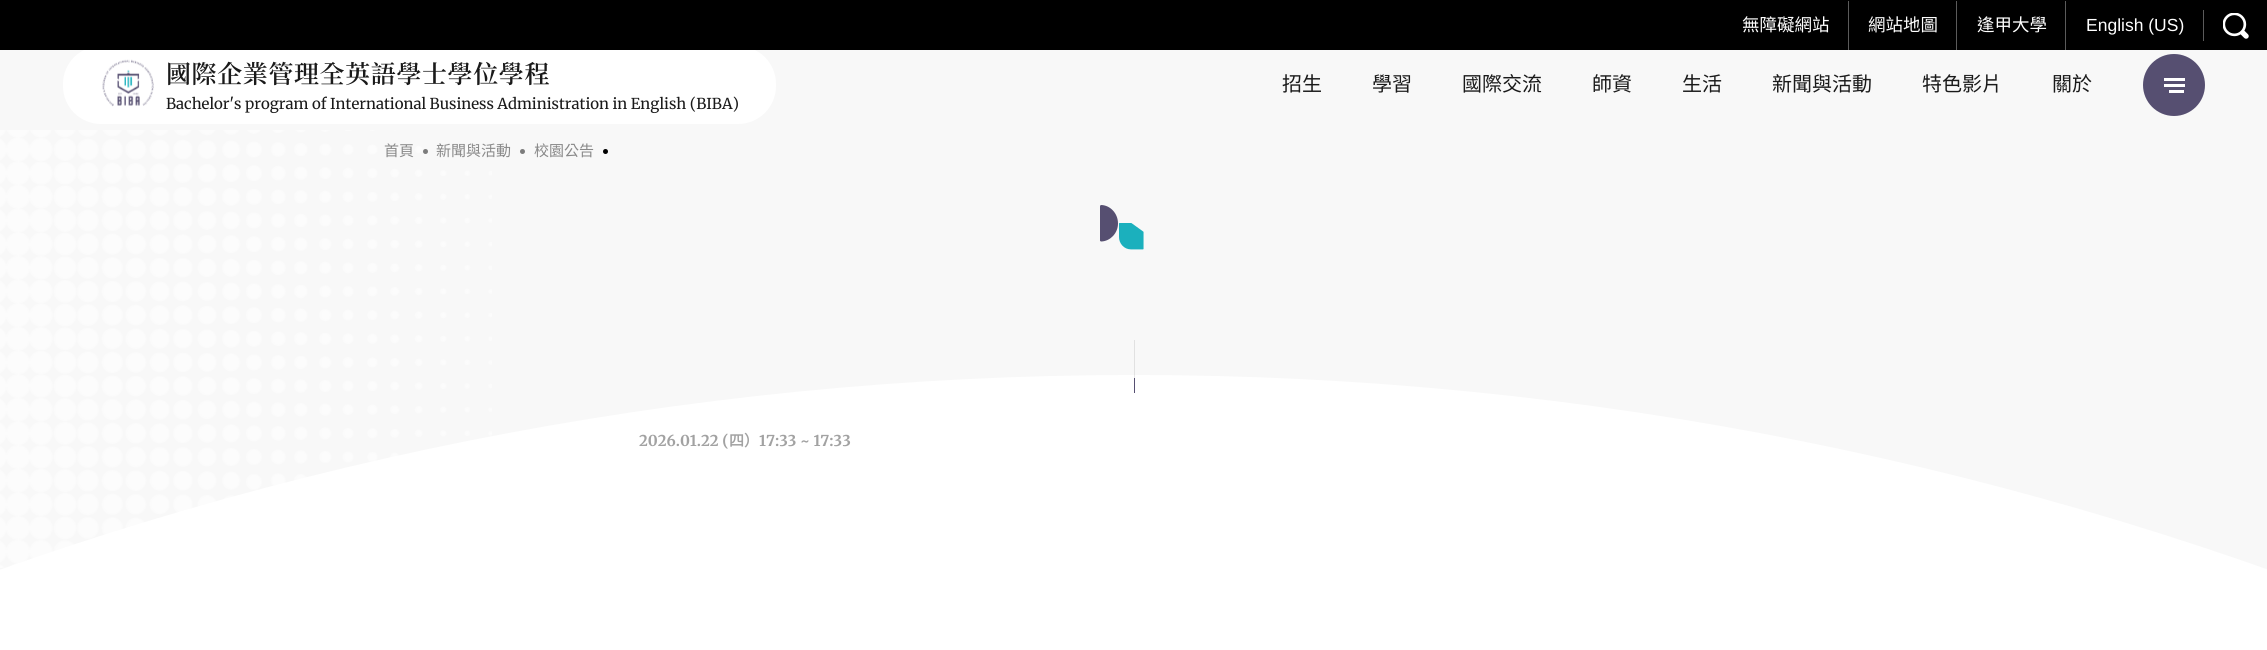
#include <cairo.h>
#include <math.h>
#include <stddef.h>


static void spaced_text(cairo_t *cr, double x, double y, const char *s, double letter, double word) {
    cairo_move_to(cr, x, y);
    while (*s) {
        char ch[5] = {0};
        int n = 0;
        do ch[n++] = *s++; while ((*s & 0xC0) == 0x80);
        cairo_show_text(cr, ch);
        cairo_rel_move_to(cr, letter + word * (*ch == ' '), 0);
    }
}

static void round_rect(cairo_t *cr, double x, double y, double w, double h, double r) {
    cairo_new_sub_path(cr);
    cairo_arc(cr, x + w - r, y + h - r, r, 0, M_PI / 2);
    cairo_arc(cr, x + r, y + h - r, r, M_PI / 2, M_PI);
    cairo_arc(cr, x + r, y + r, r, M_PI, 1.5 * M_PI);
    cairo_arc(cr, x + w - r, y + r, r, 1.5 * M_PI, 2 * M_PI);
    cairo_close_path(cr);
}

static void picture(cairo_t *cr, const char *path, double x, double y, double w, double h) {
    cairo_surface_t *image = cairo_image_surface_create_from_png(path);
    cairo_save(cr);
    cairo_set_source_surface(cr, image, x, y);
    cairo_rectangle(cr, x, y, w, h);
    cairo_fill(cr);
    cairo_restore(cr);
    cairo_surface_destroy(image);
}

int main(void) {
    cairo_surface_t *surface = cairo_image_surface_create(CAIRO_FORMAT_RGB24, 2267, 650);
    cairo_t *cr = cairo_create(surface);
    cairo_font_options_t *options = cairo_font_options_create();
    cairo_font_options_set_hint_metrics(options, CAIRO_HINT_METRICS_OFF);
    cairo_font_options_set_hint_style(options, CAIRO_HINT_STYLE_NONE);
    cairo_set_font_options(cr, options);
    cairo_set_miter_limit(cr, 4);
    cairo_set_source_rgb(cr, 0.969, 0.969, 0.969);
    cairo_paint(cr);
    cairo_set_source_rgb(cr, 0.882, 0.882, 0.882);
    cairo_rectangle(cr, 1134, 340, 1, 35);
    cairo_fill(cr);
    cairo_set_source_rgb(cr, 1, 1, 1);
    round_rect(cr, 63, 46, 713, 78, 38);
    cairo_fill(cr);
    cairo_set_source_rgb(cr, 0, 0, 0);
    cairo_rectangle(cr, 0, 0, 2267, 50);
    cairo_fill(cr);
    cairo_select_font_face(cr, "Noto Sans CJK TC", CAIRO_FONT_SLANT_NORMAL, CAIRO_FONT_WEIGHT_NORMAL);
    cairo_set_font_size(cr, 17.5);
    cairo_set_source_rgb(cr, 1, 1, 1);
    cairo_move_to(cr, 1742, 31);
    cairo_show_text(cr, "無障礙網站");
    cairo_set_source_rgb(cr, 0.357, 0.357, 0.357);
    cairo_rectangle(cr, 1848, 1, 1, 49);
    cairo_fill(cr);
    cairo_set_source_rgb(cr, 1, 1, 1);
    cairo_move_to(cr, 1868, 31);
    cairo_show_text(cr, "網站地圖");
    cairo_set_source_rgb(cr, 0.357, 0.357, 0.357);
    cairo_rectangle(cr, 1956, 1, 1, 49);
    cairo_fill(cr);
    cairo_set_source_rgb(cr, 1, 1, 1);
    cairo_move_to(cr, 1977, 31);
    cairo_show_text(cr, "逢甲大學");
    cairo_set_source_rgb(cr, 0.357, 0.357, 0.357);
    cairo_rectangle(cr, 2065, 1, 1, 49);
    cairo_fill(cr);
    cairo_select_font_face(cr, "Liberation Sans", CAIRO_FONT_SLANT_NORMAL, CAIRO_FONT_WEIGHT_NORMAL);
    cairo_set_source_rgb(cr, 1, 1, 1);
    cairo_move_to(cr, 2086, 31);
    cairo_show_text(cr, "English (US)");
    cairo_set_source_rgb(cr, 0.357, 0.357, 0.357);
    cairo_rectangle(cr, 2203, 10, 1, 31);
    cairo_fill(cr);
    picture(cr, "img1.png", 2223, 13, 26, 26);
    picture(cr, "img2.png", 102, 59, 52, 48);
    cairo_select_font_face(cr, "Noto Serif TC SemiBold", CAIRO_FONT_SLANT_NORMAL, CAIRO_FONT_WEIGHT_NORMAL);
    cairo_set_font_size(cr, 25);
    cairo_set_source_rgb(cr, 0.102, 0.102, 0.102);
    spaced_text(cr, 166, 83, "國際企業管理全英語學士學位學程", 0.6, 0);
    cairo_select_font_face(cr, "Merriweather", CAIRO_FONT_SLANT_NORMAL, CAIRO_FONT_WEIGHT_NORMAL);
    cairo_set_font_size(cr, 15);
    cairo_move_to(cr, 166, 109);
    cairo_show_text(cr, "Bachelor's program of International Business Administration in English (BIBA)");
    cairo_select_font_face(cr, "Noto Sans CJK TC", CAIRO_FONT_SLANT_NORMAL, CAIRO_FONT_WEIGHT_NORMAL);
    cairo_set_font_size(cr, 20);
    cairo_move_to(cr, 1282, 91);
    cairo_show_text(cr, "招生");
    cairo_move_to(cr, 1372, 91);
    cairo_show_text(cr, "學習");
    cairo_move_to(cr, 1462, 91);
    cairo_show_text(cr, "國際交流");
    cairo_move_to(cr, 1592, 91);
    cairo_show_text(cr, "師資");
    cairo_move_to(cr, 1682, 91);
    cairo_show_text(cr, "生活");
    cairo_move_to(cr, 1772, 91);
    cairo_show_text(cr, "新聞與活動");
    cairo_move_to(cr, 1922, 91);
    cairo_show_text(cr, "特色影片");
    cairo_move_to(cr, 2052, 91);
    cairo_show_text(cr, "關於");
    cairo_set_source_rgb(cr, 0.337, 0.31, 0.443);
    cairo_new_path(cr);
    cairo_arc(cr, 2174, 85, 31, 0, 2 * M_PI);
    cairo_fill(cr);
    cairo_set_source_rgb(cr, 1, 1, 1);
    cairo_rectangle(cr, 2164, 78, 21, 3);
    cairo_fill(cr);
    cairo_rectangle(cr, 2164, 84, 21, 3);
    cairo_fill(cr);
    cairo_rectangle(cr, 2169, 90, 15, 3);
    cairo_fill(cr);
    round_rect(cr, -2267, 375, 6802, 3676, 3401);
    cairo_fill(cr);
    picture(cr, "img3.png", 0, 130, 492, 438);
    cairo_set_source_rgb(cr, 0.337, 0.31, 0.443);
    cairo_set_fill_rule(cr, CAIRO_FILL_RULE_EVEN_ODD);
    cairo_new_path(cr);
    cairo_move_to(cr, 1100, 240.5);
    cairo_curve_to(cr, 1100, 241, 1100.5, 241.5, 1101.5, 241.5);
    cairo_curve_to(cr, 1110.5, 241, 1118, 233, 1118, 223.5);
    cairo_curve_to(cr, 1118, 213.5, 1110.5, 205.5, 1101.5, 205);
    cairo_curve_to(cr, 1100.5, 205, 1100, 205.5, 1100, 206.5);
    cairo_close_path(cr);
    cairo_fill(cr);
    picture(cr, "img4.png", 1119, 223, 25, 27);
    cairo_rectangle(cr, 1134, 378, 1, 15);
    cairo_fill(cr);
    cairo_set_font_size(cr, 15);
    cairo_set_source_rgb(cr, 0.537, 0.537, 0.537);
    cairo_move_to(cr, 384, 156);
    cairo_show_text(cr, "首頁");
    cairo_set_source_rgb(cr, 0.486, 0.486, 0.486);
    cairo_new_path(cr);
    cairo_arc(cr, 425.5, 151.5, 2.5, 0, 2 * M_PI);
    cairo_fill(cr);
    cairo_set_source_rgb(cr, 0.537, 0.537, 0.537);
    cairo_move_to(cr, 436, 156);
    cairo_show_text(cr, "新聞與活動");
    cairo_set_source_rgb(cr, 0.486, 0.486, 0.486);
    cairo_new_path(cr);
    cairo_arc(cr, 522.5, 151.5, 2.5, 0, 2 * M_PI);
    cairo_fill(cr);
    cairo_set_source_rgb(cr, 0.537, 0.537, 0.537);
    cairo_move_to(cr, 534, 156);
    cairo_show_text(cr, "校園公告");
    cairo_set_source_rgb(cr, 0, 0, 0);
    cairo_new_path(cr);
    cairo_arc(cr, 605.5, 151.5, 2.5, 0, 2 * M_PI);
    cairo_fill(cr);
    cairo_set_source_rgb(cr, 0.91, 0.91, 0.91);
    cairo_rectangle(cr, 1134, 375, 1, 3);
    cairo_fill(cr);
    cairo_select_font_face(cr, "Merriweather", CAIRO_FONT_SLANT_NORMAL, CAIRO_FONT_WEIGHT_BOLD);
    cairo_set_source_rgb(cr, 0.635, 0.635, 0.635);
    cairo_move_to(cr, 639, 446);
    cairo_show_text(cr, "2026.01.22 (");
    cairo_select_font_face(cr, "Noto Sans CJK TC", CAIRO_FONT_SLANT_NORMAL, CAIRO_FONT_WEIGHT_BOLD);
    cairo_move_to(cr, 729, 446);
    cairo_show_text(cr, "四）");
    cairo_select_font_face(cr, "Merriweather", CAIRO_FONT_SLANT_NORMAL, CAIRO_FONT_WEIGHT_BOLD);
    cairo_move_to(cr, 759, 446);
    cairo_show_text(cr, "17:33 ~ 17:33");
    cairo_surface_write_to_png(surface, "page.png");
    cairo_font_options_destroy(options);
    cairo_destroy(cr);
    cairo_surface_destroy(surface);
    return 0;
}
